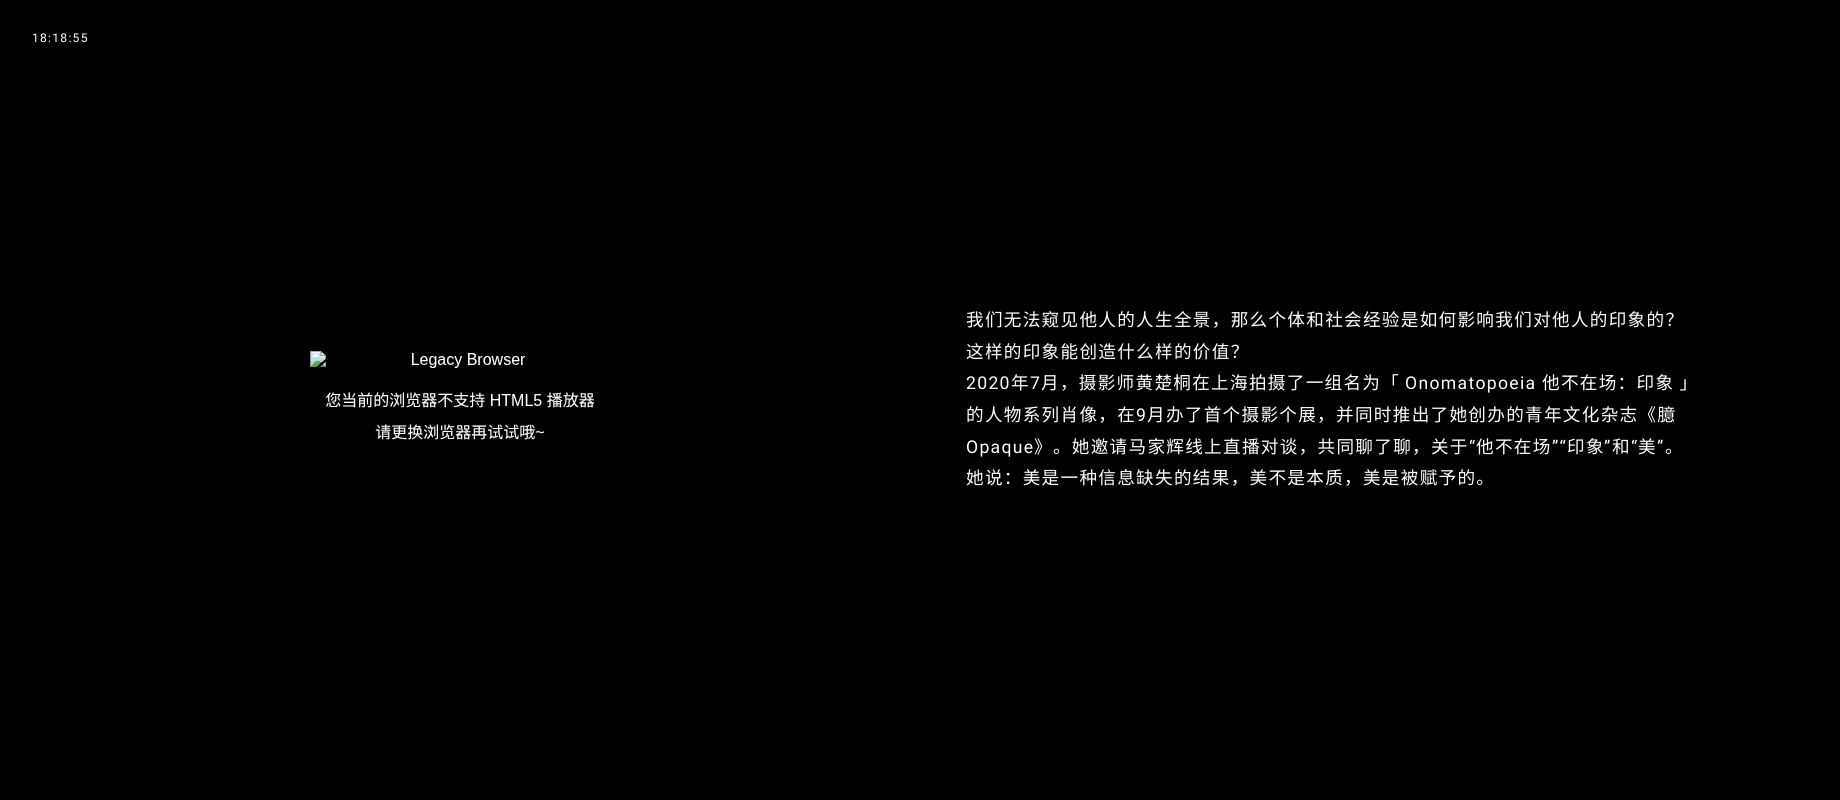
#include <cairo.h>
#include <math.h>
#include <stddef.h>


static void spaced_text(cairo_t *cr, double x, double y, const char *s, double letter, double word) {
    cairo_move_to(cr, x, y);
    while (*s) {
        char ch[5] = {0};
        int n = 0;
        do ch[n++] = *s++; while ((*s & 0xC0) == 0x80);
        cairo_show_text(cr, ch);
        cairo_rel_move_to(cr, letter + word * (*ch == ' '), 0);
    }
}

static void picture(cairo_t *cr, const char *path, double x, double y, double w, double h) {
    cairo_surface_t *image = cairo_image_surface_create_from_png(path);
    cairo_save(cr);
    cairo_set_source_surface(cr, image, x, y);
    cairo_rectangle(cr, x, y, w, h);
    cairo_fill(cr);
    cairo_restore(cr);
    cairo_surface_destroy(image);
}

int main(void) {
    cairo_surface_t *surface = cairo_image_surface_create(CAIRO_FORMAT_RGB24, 1840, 800);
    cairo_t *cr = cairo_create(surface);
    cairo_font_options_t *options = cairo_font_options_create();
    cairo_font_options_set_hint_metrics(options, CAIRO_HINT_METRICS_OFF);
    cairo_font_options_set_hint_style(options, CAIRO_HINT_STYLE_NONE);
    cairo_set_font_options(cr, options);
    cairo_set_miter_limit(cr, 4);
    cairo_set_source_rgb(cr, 0, 0, 0);
    cairo_paint(cr);
    cairo_select_font_face(cr, "Roboto", CAIRO_FONT_SLANT_NORMAL, CAIRO_FONT_WEIGHT_NORMAL);
    cairo_set_font_size(cr, 12);
    cairo_set_source_rgb(cr, 1, 1, 1);
    spaced_text(cr, 32, 42, "18:18:55", 1.3, 0);
    picture(cr, "img1.png", 310, 351, 285, 89);
    cairo_select_font_face(cr, "Noto Sans SC", CAIRO_FONT_SLANT_NORMAL, CAIRO_FONT_WEIGHT_NORMAL);
    cairo_set_font_size(cr, 17.6);
    spaced_text(cr, 966, 326, "我们无法窥见他人的人生全景，那么个体和社会经验是如何影响我们对他人的印象的？", 1.3, 0);
    spaced_text(cr, 966, 358, "这样的印象能创造什么样的价值？", 1.3, 0);
    cairo_select_font_face(cr, "Roboto", CAIRO_FONT_SLANT_NORMAL, CAIRO_FONT_WEIGHT_NORMAL);
    spaced_text(cr, 966, 389, "2020", 1.3, 0);
    cairo_select_font_face(cr, "Noto Sans SC", CAIRO_FONT_SLANT_NORMAL, CAIRO_FONT_WEIGHT_NORMAL);
    spaced_text(cr, 1011, 389, "年", 1.3, 0);
    cairo_select_font_face(cr, "Roboto", CAIRO_FONT_SLANT_NORMAL, CAIRO_FONT_WEIGHT_NORMAL);
    spaced_text(cr, 1030, 389, "7", 1.3, 0);
    cairo_select_font_face(cr, "Noto Sans SC", CAIRO_FONT_SLANT_NORMAL, CAIRO_FONT_WEIGHT_NORMAL);
    spaced_text(cr, 1041, 389, "月，摄影师黄楚桐在上海拍摄了一组名为「", 1.3, 0);
    cairo_select_font_face(cr, "Roboto", CAIRO_FONT_SLANT_NORMAL, CAIRO_FONT_WEIGHT_NORMAL);
    spaced_text(cr, 1405, 389, "Onomatopoeia", 1.3, 0);
    cairo_select_font_face(cr, "Noto Sans SC", CAIRO_FONT_SLANT_NORMAL, CAIRO_FONT_WEIGHT_NORMAL);
    spaced_text(cr, 1542, 389, "他不在场：印象 」", 1.3, 0);
    spaced_text(cr, 966, 421, "的人物系列肖像，在", 1.3, 0);
    cairo_select_font_face(cr, "Roboto", CAIRO_FONT_SLANT_NORMAL, CAIRO_FONT_WEIGHT_NORMAL);
    spaced_text(cr, 1136, 421, "9", 1.3, 0);
    cairo_select_font_face(cr, "Noto Sans SC", CAIRO_FONT_SLANT_NORMAL, CAIRO_FONT_WEIGHT_NORMAL);
    spaced_text(cr, 1147, 421, "月办了首个摄影个展，并同时推出了她创办的青年文化杂志《臆", 1.3, 0);
    cairo_select_font_face(cr, "Roboto", CAIRO_FONT_SLANT_NORMAL, CAIRO_FONT_WEIGHT_NORMAL);
    spaced_text(cr, 966, 453, "Opaque", 1.3, 0);
    cairo_select_font_face(cr, "Noto Sans SC", CAIRO_FONT_SLANT_NORMAL, CAIRO_FONT_WEIGHT_NORMAL);
    spaced_text(cr, 1034, 453, "》。她邀请马家辉线上直播对谈，共同聊了聊，关于", 1.3, 0);
    cairo_select_font_face(cr, "Roboto", CAIRO_FONT_SLANT_NORMAL, CAIRO_FONT_WEIGHT_NORMAL);
    spaced_text(cr, 1469, 453, "“", 1.3, 0);
    cairo_select_font_face(cr, "Noto Sans SC", CAIRO_FONT_SLANT_NORMAL, CAIRO_FONT_WEIGHT_NORMAL);
    spaced_text(cr, 1476, 453, "他不在场", 1.3, 0);
    cairo_select_font_face(cr, "Roboto", CAIRO_FONT_SLANT_NORMAL, CAIRO_FONT_WEIGHT_NORMAL);
    spaced_text(cr, 1552, 453, "”“", 1.3, 0);
    cairo_select_font_face(cr, "Noto Sans SC", CAIRO_FONT_SLANT_NORMAL, CAIRO_FONT_WEIGHT_NORMAL);
    spaced_text(cr, 1567, 453, "印象", 1.3, 0);
    cairo_select_font_face(cr, "Roboto", CAIRO_FONT_SLANT_NORMAL, CAIRO_FONT_WEIGHT_NORMAL);
    spaced_text(cr, 1604, 453, "”", 1.3, 0);
    cairo_select_font_face(cr, "Noto Sans SC", CAIRO_FONT_SLANT_NORMAL, CAIRO_FONT_WEIGHT_NORMAL);
    spaced_text(cr, 1612, 453, "和", 1.3, 0);
    cairo_select_font_face(cr, "Roboto", CAIRO_FONT_SLANT_NORMAL, CAIRO_FONT_WEIGHT_NORMAL);
    spaced_text(cr, 1631, 453, "“", 1.3, 0);
    cairo_select_font_face(cr, "Noto Sans SC", CAIRO_FONT_SLANT_NORMAL, CAIRO_FONT_WEIGHT_NORMAL);
    spaced_text(cr, 1638, 453, "美", 1.3, 0);
    cairo_select_font_face(cr, "Roboto", CAIRO_FONT_SLANT_NORMAL, CAIRO_FONT_WEIGHT_NORMAL);
    spaced_text(cr, 1657, 453, "”", 1.3, 0);
    cairo_select_font_face(cr, "Noto Sans SC", CAIRO_FONT_SLANT_NORMAL, CAIRO_FONT_WEIGHT_NORMAL);
    spaced_text(cr, 1665, 453, "。", 1.3, 0);
    spaced_text(cr, 966, 484, "她说：美是一种信息缺失的结果，美不是本质，美是被赋予的。", 1.3, 0);
    cairo_surface_write_to_png(surface, "page.png");
    cairo_font_options_destroy(options);
    cairo_destroy(cr);
    cairo_surface_destroy(surface);
    return 0;
}
